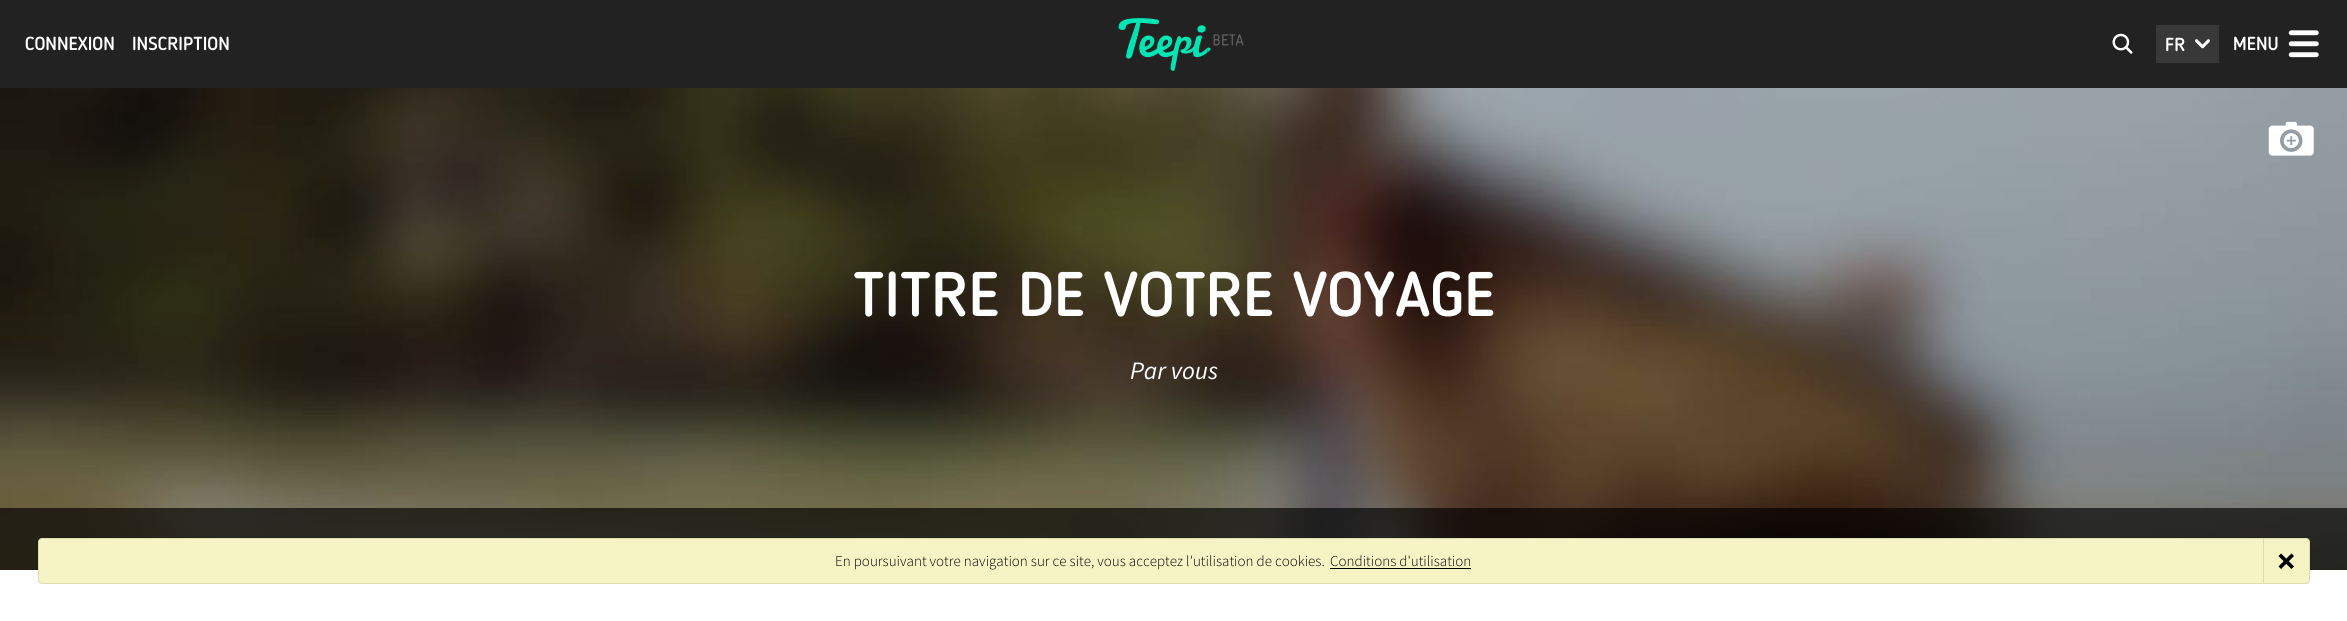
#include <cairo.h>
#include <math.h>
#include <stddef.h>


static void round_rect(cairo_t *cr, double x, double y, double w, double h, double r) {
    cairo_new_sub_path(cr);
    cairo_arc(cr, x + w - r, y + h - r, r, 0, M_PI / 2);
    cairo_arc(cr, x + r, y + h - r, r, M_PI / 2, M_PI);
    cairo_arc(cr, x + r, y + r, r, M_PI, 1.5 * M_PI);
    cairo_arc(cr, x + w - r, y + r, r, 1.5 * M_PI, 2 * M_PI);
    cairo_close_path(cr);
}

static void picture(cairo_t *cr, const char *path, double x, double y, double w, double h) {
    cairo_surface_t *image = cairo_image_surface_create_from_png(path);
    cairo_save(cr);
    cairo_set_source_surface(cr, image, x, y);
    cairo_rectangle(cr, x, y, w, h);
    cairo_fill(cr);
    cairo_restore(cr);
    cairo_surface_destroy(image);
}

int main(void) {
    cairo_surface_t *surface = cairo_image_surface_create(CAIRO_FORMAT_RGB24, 2347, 621);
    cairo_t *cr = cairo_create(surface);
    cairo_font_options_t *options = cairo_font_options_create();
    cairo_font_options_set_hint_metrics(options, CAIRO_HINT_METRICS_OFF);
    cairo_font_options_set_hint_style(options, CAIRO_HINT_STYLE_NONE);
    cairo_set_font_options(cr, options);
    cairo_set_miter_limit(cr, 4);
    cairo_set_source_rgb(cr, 1, 1, 1);
    cairo_paint(cr);
    cairo_set_source_rgb(cr, 0.133, 0.133, 0.133);
    cairo_rectangle(cr, 0, 0, 2347, 88);
    cairo_fill(cr);
    cairo_select_font_face(cr, "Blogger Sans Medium", CAIRO_FONT_SLANT_NORMAL, CAIRO_FONT_WEIGHT_NORMAL);
    cairo_set_font_size(cr, 18.75);
    cairo_set_source_rgb(cr, 1, 1, 1);
    cairo_move_to(cr, 25, 50);
    cairo_show_text(cr, "CONNEXION");
    cairo_move_to(cr, 132, 50);
    cairo_show_text(cr, "INSCRIPTION");
    picture(cr, "img1.png", 1118, 18, 126, 53);
    picture(cr, "img2.png", 2112, 33, 21, 21);
    cairo_set_source_rgb(cr, 0.22, 0.22, 0.22);
    cairo_rectangle(cr, 2156, 25, 63, 38);
    cairo_fill(cr);
    picture(cr, "img3.png", 2195, 39, 15, 10);
    cairo_set_source_rgb(cr, 1, 1, 1);
    cairo_move_to(cr, 2165, 51);
    cairo_show_text(cr, "FR");
    picture(cr, "img4.png", 2288, 30, 31, 28);
    cairo_move_to(cr, 2233, 50);
    cairo_show_text(cr, "MENU");
    picture(cr, "img5.png", 0, 88, 2347, 482);
    cairo_set_source_rgba(cr, 0, 0, 0, 0.25);
    cairo_rectangle(cr, 0, 88, 2347, 420);
    cairo_fill(cr);
    picture(cr, "img6.png", 2268, 121, 46, 35);
    cairo_set_font_size(cr, 62.5);
    cairo_set_source_rgb(cr, 1, 1, 1);
    cairo_move_to(cr, 853, 316);
    cairo_show_text(cr, "TITRE DE VOTRE VOYAGE");
    cairo_select_font_face(cr, "Source Sans Pro", CAIRO_FONT_SLANT_ITALIC, CAIRO_FONT_WEIGHT_NORMAL);
    cairo_set_font_size(cr, 25);
    cairo_move_to(cr, 1130, 379);
    cairo_show_text(cr, "Par vous");
    cairo_set_source_rgba(cr, 0, 0, 0, 0.75);
    cairo_rectangle(cr, 0, 508, 2347, 62);
    cairo_fill(cr);
    cairo_set_source_rgb(cr, 0.961, 0.957, 0.769);
    round_rect(cr, 38, 538, 2272, 46, 4);
    cairo_fill(cr);
    round_rect(cr, 38.5, 538.5, 2271, 45, 3.5);
    cairo_set_source_rgba(cr, 0, 0, 0, 0.1);
    cairo_set_line_width(cr, 1);
    cairo_stroke(cr);
    cairo_select_font_face(cr, "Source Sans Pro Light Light", CAIRO_FONT_SLANT_NORMAL, CAIRO_FONT_WEIGHT_NORMAL);
    cairo_set_font_size(cr, 15);
    cairo_set_source_rgb(cr, 0, 0, 0);
    cairo_move_to(cr, 835, 566);
    cairo_show_text(cr, "En poursuivant votre navigation sur ce site, vous acceptez l'utilisation de cookies.");
    cairo_move_to(cr, 1330, 566);
    cairo_show_text(cr, "Conditions d'utilisation");
    cairo_rectangle(cr, 1330, 568, 141, 1);
    cairo_fill(cr);
    picture(cr, "img7.png", 2278, 553, 16, 16);
    cairo_set_source_rgb(cr, 0.867, 0.863, 0.69);
    cairo_rectangle(cr, 2263, 539, 1, 44);
    cairo_fill(cr);
    cairo_surface_write_to_png(surface, "page.png");
    cairo_font_options_destroy(options);
    cairo_destroy(cr);
    cairo_surface_destroy(surface);
    return 0;
}
